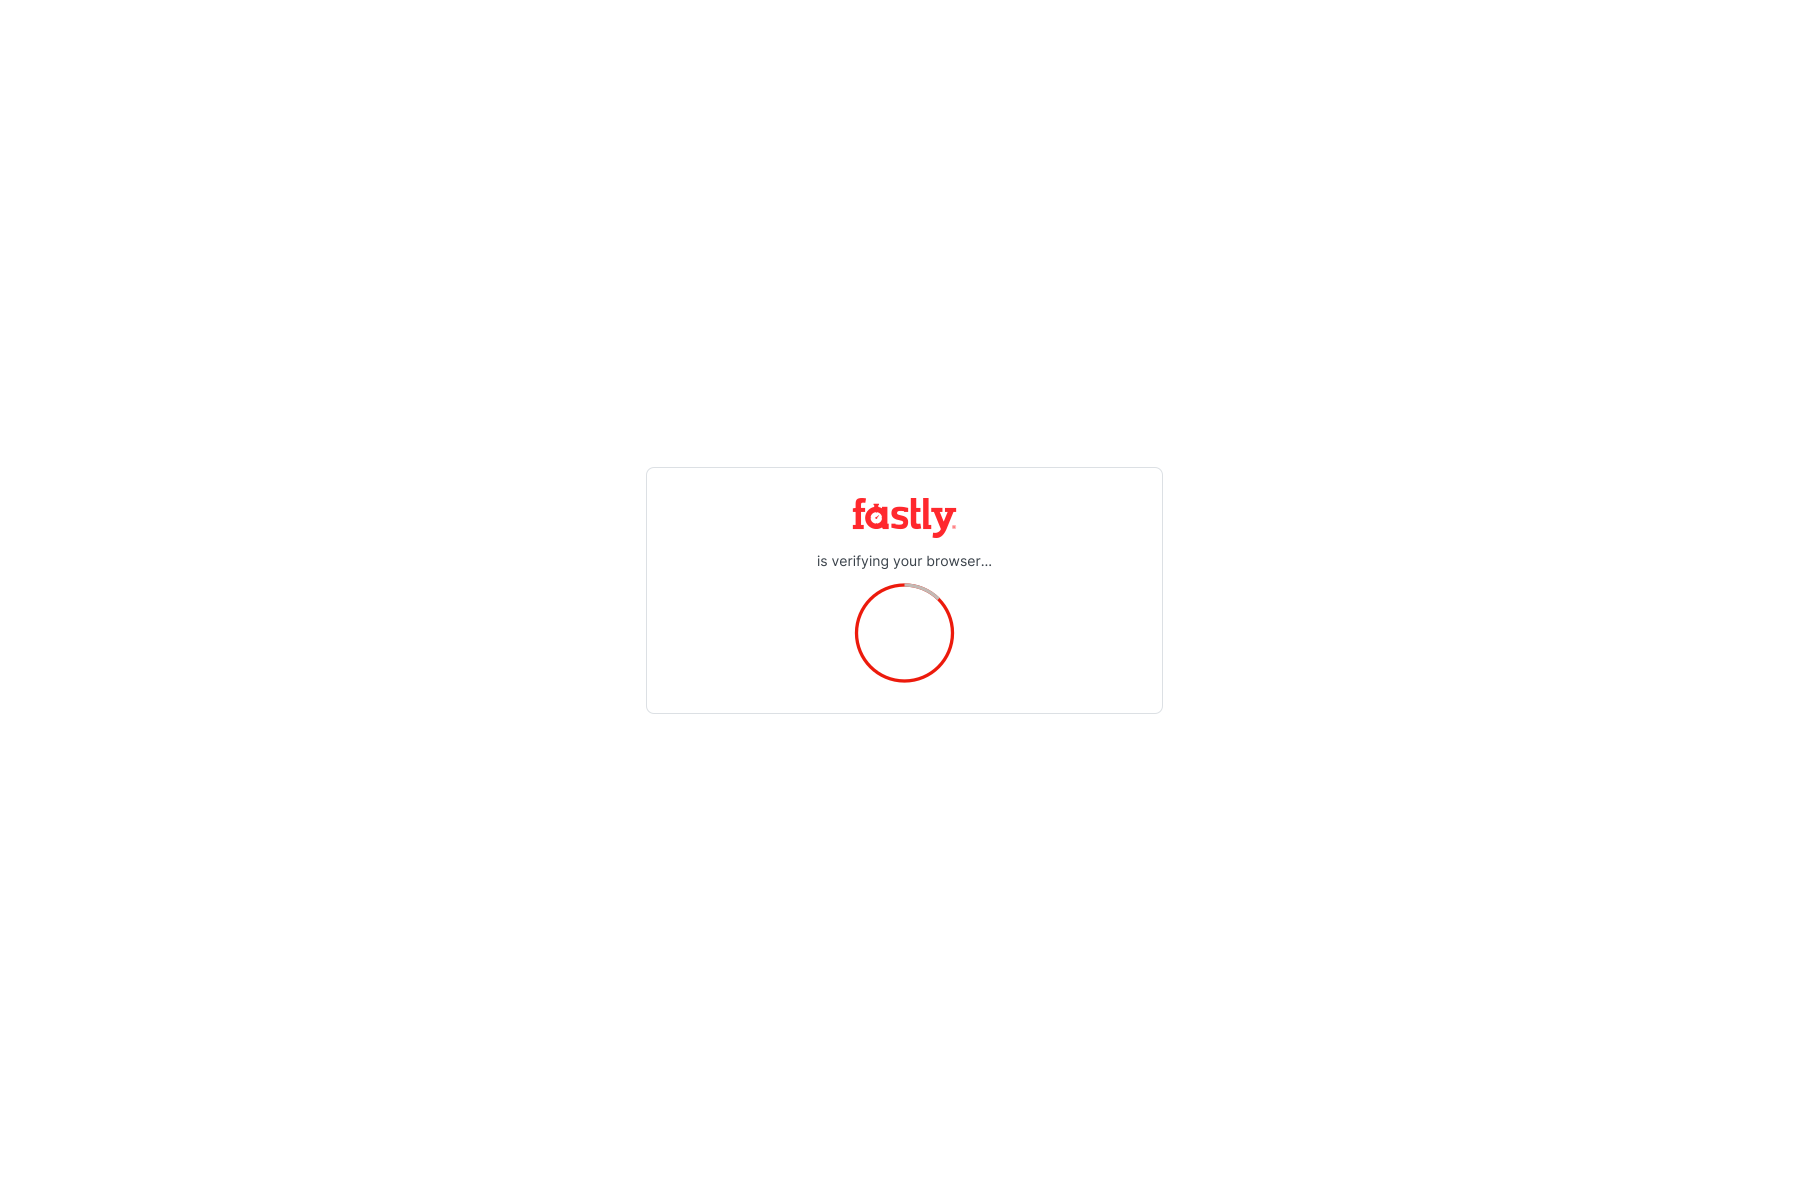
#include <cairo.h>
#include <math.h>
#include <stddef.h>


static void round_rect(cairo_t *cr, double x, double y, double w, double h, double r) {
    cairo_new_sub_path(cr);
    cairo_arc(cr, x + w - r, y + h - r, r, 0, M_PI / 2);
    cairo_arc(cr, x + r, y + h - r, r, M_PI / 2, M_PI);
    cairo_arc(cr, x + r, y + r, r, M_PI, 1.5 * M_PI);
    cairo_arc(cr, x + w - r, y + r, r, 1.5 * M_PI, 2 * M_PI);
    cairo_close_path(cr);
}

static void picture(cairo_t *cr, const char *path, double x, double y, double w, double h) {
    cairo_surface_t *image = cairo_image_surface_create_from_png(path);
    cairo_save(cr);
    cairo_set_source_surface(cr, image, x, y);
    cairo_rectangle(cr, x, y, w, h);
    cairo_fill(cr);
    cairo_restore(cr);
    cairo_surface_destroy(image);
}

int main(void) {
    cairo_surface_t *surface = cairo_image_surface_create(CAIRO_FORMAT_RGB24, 1809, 1181);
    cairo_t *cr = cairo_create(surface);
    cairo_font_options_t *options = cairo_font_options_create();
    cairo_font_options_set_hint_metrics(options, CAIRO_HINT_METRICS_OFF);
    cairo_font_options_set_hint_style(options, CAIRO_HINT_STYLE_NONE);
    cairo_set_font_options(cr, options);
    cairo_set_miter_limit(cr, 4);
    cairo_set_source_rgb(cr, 1, 1, 1);
    cairo_paint(cr);
    round_rect(cr, 646.5, 467.5, 516, 246, 7.5);
    cairo_set_source_rgb(cr, 0.863, 0.878, 0.894);
    cairo_set_line_width(cr, 1);
    cairo_stroke(cr);
    picture(cr, "img1.png", 852, 498, 105, 40);
    cairo_select_font_face(cr, "Inter", CAIRO_FONT_SLANT_NORMAL, CAIRO_FONT_WEIGHT_NORMAL);
    cairo_set_font_size(cr, 14);
    cairo_set_source_rgb(cr, 0.227, 0.259, 0.29);
    cairo_move_to(cr, 817, 566);
    cairo_show_text(cr, "is verifying your browser...");
    cairo_new_path(cr);
    cairo_move_to(cr, 856.5, 633);
    cairo_curve_to(cr, 856.5, 606.5, 878, 585, 904.5, 585);
    cairo_curve_to(cr, 931, 585, 952.5, 606.5, 952.5, 633);
    cairo_curve_to(cr, 952.5, 659.5, 931, 681, 904.5, 681);
    cairo_curve_to(cr, 878, 681, 856.5, 659.5, 856.5, 633);
    cairo_close_path(cr);
    cairo_set_source_rgb(cr, 0.922, 0.102, 0.047);
    cairo_set_line_width(cr, 3.3);
    cairo_stroke(cr);
    cairo_new_path(cr);
    cairo_move_to(cr, 938.5, 599);
    cairo_curve_to(cr, 929.5, 590, 917, 585, 904.5, 585);
    cairo_set_source_rgb(cr, 0.761, 0.729, 0.71);
    cairo_stroke(cr);
    cairo_surface_write_to_png(surface, "page.png");
    cairo_font_options_destroy(options);
    cairo_destroy(cr);
    cairo_surface_destroy(surface);
    return 0;
}
